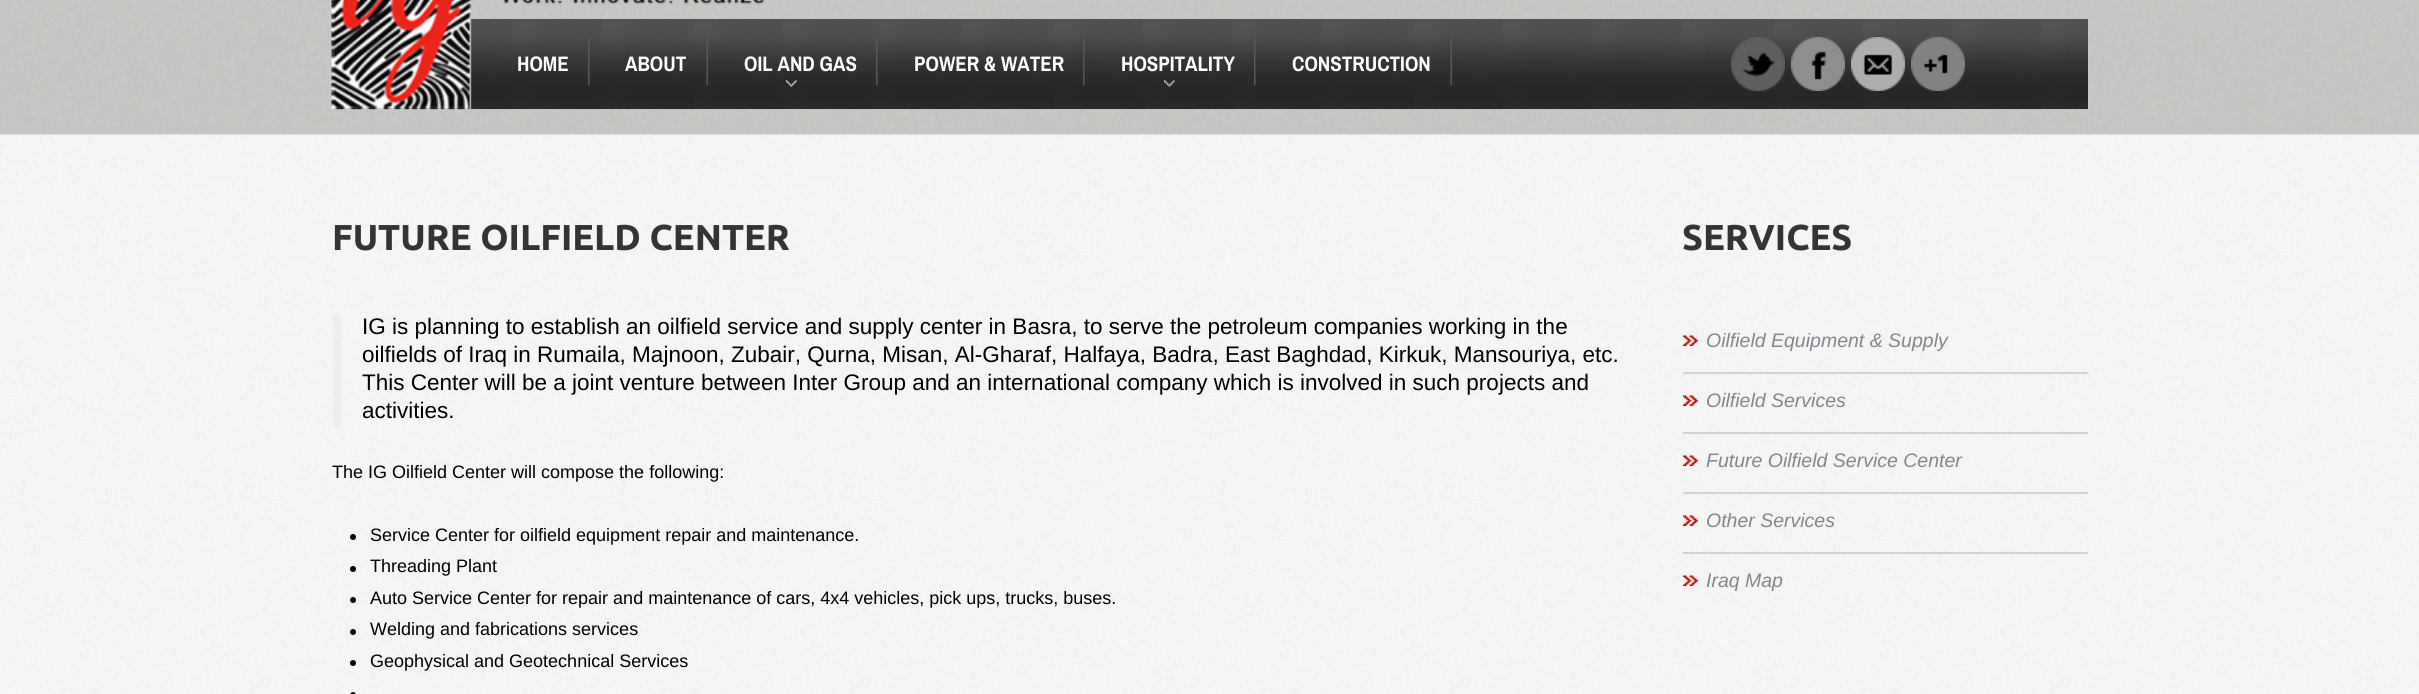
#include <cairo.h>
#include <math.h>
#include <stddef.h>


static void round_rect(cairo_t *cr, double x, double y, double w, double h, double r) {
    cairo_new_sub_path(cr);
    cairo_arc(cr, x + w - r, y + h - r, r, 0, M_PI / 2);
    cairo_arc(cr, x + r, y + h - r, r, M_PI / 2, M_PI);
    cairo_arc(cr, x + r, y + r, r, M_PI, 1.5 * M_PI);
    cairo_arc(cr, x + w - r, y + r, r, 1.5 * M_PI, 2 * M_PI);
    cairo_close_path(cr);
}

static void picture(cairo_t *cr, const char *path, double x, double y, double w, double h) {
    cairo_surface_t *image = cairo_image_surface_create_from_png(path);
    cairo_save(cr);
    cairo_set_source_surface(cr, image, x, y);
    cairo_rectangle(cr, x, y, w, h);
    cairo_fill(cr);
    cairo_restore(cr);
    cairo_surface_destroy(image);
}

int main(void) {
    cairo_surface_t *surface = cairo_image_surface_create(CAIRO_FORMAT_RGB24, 2419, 694);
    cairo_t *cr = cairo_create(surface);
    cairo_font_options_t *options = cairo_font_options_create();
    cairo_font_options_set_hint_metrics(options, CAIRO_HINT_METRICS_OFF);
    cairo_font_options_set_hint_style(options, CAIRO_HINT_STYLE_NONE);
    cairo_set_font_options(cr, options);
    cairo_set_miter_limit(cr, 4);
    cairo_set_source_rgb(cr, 1, 1, 1);
    cairo_paint(cr);
    picture(cr, "img16.png", 0, 134, 2419, 560);
    picture(cr, "img1.png", 0, 0, 2419, 135);
    picture(cr, "img2.png", 333, 19, 1755, 90);
    picture(cr, "img3.png", 331, 0, 433, 110);
    picture(cr, "img4.png", 588, 38, 2, 47);
    cairo_select_font_face(cr, "Archivo Narrow", CAIRO_FONT_SLANT_NORMAL, CAIRO_FONT_WEIGHT_BOLD);
    cairo_set_font_size(cr, 21);
    cairo_set_source_rgb(cr, 1, 1, 1);
    cairo_move_to(cr, 517, 71);
    cairo_show_text(cr, "HOME");
    picture(cr, "img5.png", 706, 38, 2, 47);
    cairo_move_to(cr, 625, 71);
    cairo_show_text(cr, "ABOUT");
    picture(cr, "img6.png", 876, 38, 2, 47);
    cairo_move_to(cr, 744, 71);
    cairo_show_text(cr, "OIL AND GAS");
    picture(cr, "img7.png", 786, 80, 11, 7);
    picture(cr, "img8.png", 1083, 38, 2, 47);
    cairo_move_to(cr, 914, 71);
    cairo_show_text(cr, "POWER & WATER");
    picture(cr, "img9.png", 1254, 38, 2, 47);
    cairo_move_to(cr, 1121, 71);
    cairo_show_text(cr, "HOSPITALITY");
    picture(cr, "img10.png", 1164, 80, 11, 7);
    picture(cr, "img11.png", 1450, 38, 2, 47);
    cairo_move_to(cr, 1292, 71);
    cairo_show_text(cr, "CONSTRUCTION");
    picture(cr, "img12.png", 1731, 37, 54, 54);
    picture(cr, "img13.png", 1791, 37, 54, 54);
    picture(cr, "img14.png", 1851, 37, 54, 54);
    picture(cr, "img15.png", 1911, 37, 54, 54);
    cairo_select_font_face(cr, "Ubuntu", CAIRO_FONT_SLANT_NORMAL, CAIRO_FONT_WEIGHT_BOLD);
    cairo_set_font_size(cr, 36);
    cairo_set_source_rgb(cr, 0.204, 0.204, 0.204);
    cairo_move_to(cr, 332, 250);
    cairo_show_text(cr, "FUTURE OILFIELD CENTER");
    cairo_set_source_rgb(cr, 0.933, 0.933, 0.933);
    cairo_rectangle(cr, 333, 314, 8, 112);
    cairo_fill(cr);
    cairo_select_font_face(cr, "Liberation Sans", CAIRO_FONT_SLANT_NORMAL, CAIRO_FONT_WEIGHT_NORMAL);
    cairo_set_font_size(cr, 22.5);
    cairo_set_source_rgb(cr, 0, 0, 0);
    cairo_move_to(cr, 362, 334);
    cairo_show_text(cr, "IG is planning to establish an oilfield service and supply center in Basra, to serve the petroleum companies working in the");
    cairo_move_to(cr, 362, 362);
    cairo_show_text(cr, "oilfields of Iraq in Rumaila, Majnoon, Zubair, Qurna, Misan, Al-Gharaf, Halfaya, Badra, East Baghdad, Kirkuk, Mansouriya, etc.");
    cairo_move_to(cr, 362, 390);
    cairo_show_text(cr, "This Center will be a joint venture between Inter Group and an international company which is involved in such projects and");
    cairo_move_to(cr, 362, 418);
    cairo_show_text(cr, "activities.");
    cairo_set_font_size(cr, 18);
    cairo_move_to(cr, 332, 478);
    cairo_show_text(cr, "The IG Oilfield Center will compose the following:");
    cairo_new_path(cr);
    cairo_arc(cr, 353, 537, 3, 0, 2 * M_PI);
    cairo_fill(cr);
    cairo_move_to(cr, 370, 541);
    cairo_show_text(cr, "Service Center for oilfield equipment repair and maintenance.");
    cairo_new_path(cr);
    cairo_arc(cr, 353, 569, 3, 0, 2 * M_PI);
    cairo_fill(cr);
    cairo_move_to(cr, 370, 572);
    cairo_show_text(cr, "Threading Plant");
    cairo_new_path(cr);
    cairo_arc(cr, 353, 600, 3, 0, 2 * M_PI);
    cairo_fill(cr);
    cairo_move_to(cr, 370, 604);
    cairo_show_text(cr, "Auto Service Center for repair and maintenance of cars, 4x4 vehicles, pick ups, trucks, buses.");
    cairo_new_path(cr);
    cairo_arc(cr, 353, 632, 3, 0, 2 * M_PI);
    cairo_fill(cr);
    cairo_move_to(cr, 370, 635);
    cairo_show_text(cr, "Welding and fabrications services");
    cairo_new_path(cr);
    cairo_arc(cr, 353, 663, 3, 0, 2 * M_PI);
    cairo_fill(cr);
    cairo_move_to(cr, 370, 667);
    cairo_show_text(cr, "Geophysical and Geotechnical Services");
    round_rect(cr, 350, 692, 6, 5, 3);
    cairo_fill(cr);
    cairo_select_font_face(cr, "Ubuntu", CAIRO_FONT_SLANT_NORMAL, CAIRO_FONT_WEIGHT_BOLD);
    cairo_set_font_size(cr, 36);
    cairo_set_source_rgb(cr, 0.204, 0.204, 0.204);
    cairo_move_to(cr, 1682, 250);
    cairo_show_text(cr, "SERVICES");
    picture(cr, "img17.png", 1683, 335, 15, 11);
    cairo_select_font_face(cr, "Liberation Sans", CAIRO_FONT_SLANT_ITALIC, CAIRO_FONT_WEIGHT_NORMAL);
    cairo_set_font_size(cr, 19.5);
    cairo_set_source_rgb(cr, 0.514, 0.525, 0.541);
    cairo_move_to(cr, 1706, 347);
    cairo_show_text(cr, "Oilfield Equipment & Supply");
    picture(cr, "img18.png", 1683, 395, 15, 11);
    cairo_set_source_rgb(cr, 0.82, 0.82, 0.82);
    cairo_rectangle(cr, 1683, 372, 405, 2);
    cairo_fill(cr);
    cairo_set_source_rgb(cr, 0.514, 0.525, 0.541);
    cairo_move_to(cr, 1706, 407);
    cairo_show_text(cr, "Oilfield Services");
    picture(cr, "img19.png", 1683, 455, 15, 11);
    cairo_set_source_rgb(cr, 0.82, 0.82, 0.82);
    cairo_rectangle(cr, 1683, 432, 405, 2);
    cairo_fill(cr);
    cairo_set_source_rgb(cr, 0.514, 0.525, 0.541);
    cairo_move_to(cr, 1706, 467);
    cairo_show_text(cr, "Future Oilfield Service Center");
    picture(cr, "img20.png", 1683, 515, 15, 11);
    cairo_set_source_rgb(cr, 0.82, 0.82, 0.82);
    cairo_rectangle(cr, 1683, 492, 405, 2);
    cairo_fill(cr);
    cairo_set_source_rgb(cr, 0.514, 0.525, 0.541);
    cairo_move_to(cr, 1706, 527);
    cairo_show_text(cr, "Other Services");
    picture(cr, "img21.png", 1683, 575, 15, 11);
    cairo_set_source_rgb(cr, 0.82, 0.82, 0.82);
    cairo_rectangle(cr, 1683, 552, 405, 2);
    cairo_fill(cr);
    cairo_set_source_rgb(cr, 0.514, 0.525, 0.541);
    cairo_move_to(cr, 1706, 587);
    cairo_show_text(cr, "Iraq Map");
    cairo_surface_write_to_png(surface, "page.png");
    cairo_font_options_destroy(options);
    cairo_destroy(cr);
    cairo_surface_destroy(surface);
    return 0;
}
